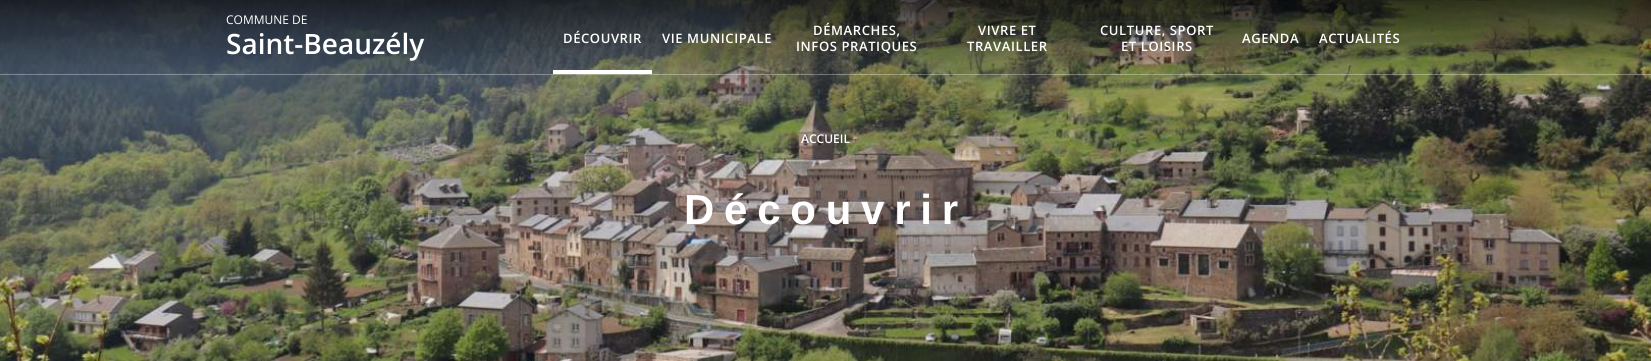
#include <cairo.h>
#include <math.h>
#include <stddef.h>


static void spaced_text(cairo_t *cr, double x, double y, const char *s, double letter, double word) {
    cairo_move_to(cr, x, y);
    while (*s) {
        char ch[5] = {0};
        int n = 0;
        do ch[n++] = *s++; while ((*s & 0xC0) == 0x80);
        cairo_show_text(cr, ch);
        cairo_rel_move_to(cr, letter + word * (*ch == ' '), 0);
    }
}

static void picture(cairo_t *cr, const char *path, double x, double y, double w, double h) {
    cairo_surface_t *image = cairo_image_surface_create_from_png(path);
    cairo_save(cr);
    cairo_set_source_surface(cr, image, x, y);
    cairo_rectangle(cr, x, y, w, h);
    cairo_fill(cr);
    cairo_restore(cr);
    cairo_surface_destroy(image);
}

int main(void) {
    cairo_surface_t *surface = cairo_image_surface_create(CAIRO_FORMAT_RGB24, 1651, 361);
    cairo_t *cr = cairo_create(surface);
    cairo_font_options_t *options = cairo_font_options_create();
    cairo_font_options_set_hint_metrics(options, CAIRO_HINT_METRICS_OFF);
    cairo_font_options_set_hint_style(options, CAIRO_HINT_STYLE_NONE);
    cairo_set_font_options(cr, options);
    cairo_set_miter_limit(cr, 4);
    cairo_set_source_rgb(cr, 1, 1, 1);
    cairo_paint(cr);
    picture(cr, "img1.png", 0, 0, 1651, 361);
    cairo_set_source_rgba(cr, 1, 1, 1, 0.32);
    cairo_rectangle(cr, 0, 74, 1651, 1);
    cairo_fill(cr);
    cairo_select_font_face(cr, "Open Sans", CAIRO_FONT_SLANT_NORMAL, CAIRO_FONT_WEIGHT_NORMAL);
    cairo_set_font_size(cr, 12);
    cairo_set_source_rgb(cr, 1, 1, 1);
    cairo_move_to(cr, 226, 24);
    cairo_show_text(cr, "COMMUNE DE");
    cairo_select_font_face(cr, "Open Sans SemiBold", CAIRO_FONT_SLANT_NORMAL, CAIRO_FONT_WEIGHT_NORMAL);
    cairo_set_font_size(cr, 28);
    cairo_move_to(cr, 226, 54);
    cairo_show_text(cr, "Saint-Beauzély");
    cairo_set_font_size(cr, 13);
    spaced_text(cr, 563, 43, "DÉCOUVRIR", 0.6, 0);
    cairo_rectangle(cr, 553, 70, 99, 4);
    cairo_fill(cr);
    spaced_text(cr, 662, 43, "VIE MUNICIPALE", 0.6, 0);
    spaced_text(cr, 813, 35, "DÉMARCHES,", 0.6, 0);
    spaced_text(cr, 796, 51, "INFOS PRATIQUES", 0.6, 0);
    spaced_text(cr, 978, 35, "VIVRE ET", 0.6, 0);
    spaced_text(cr, 967, 51, "TRAVAILLER", 0.6, 0);
    spaced_text(cr, 1100, 35, "CULTURE, SPORT", 0.6, 0);
    spaced_text(cr, 1121, 51, "ET LOISIRS", 0.6, 0);
    spaced_text(cr, 1242, 43, "AGENDA", 0.6, 0);
    spaced_text(cr, 1319, 43, "ACTUALITÉS", 0.6, 0);
    cairo_set_font_size(cr, 12);
    cairo_move_to(cr, 801, 143);
    cairo_show_text(cr, "ACCUEIL");
    cairo_select_font_face(cr, "Liberation Sans", CAIRO_FONT_SLANT_NORMAL, CAIRO_FONT_WEIGHT_BOLD);
    cairo_set_font_size(cr, 42);
    spaced_text(cr, 684, 224, "Découvrir", 9.75, 0);
    cairo_surface_write_to_png(surface, "page.png");
    cairo_font_options_destroy(options);
    cairo_destroy(cr);
    cairo_surface_destroy(surface);
    return 0;
}
